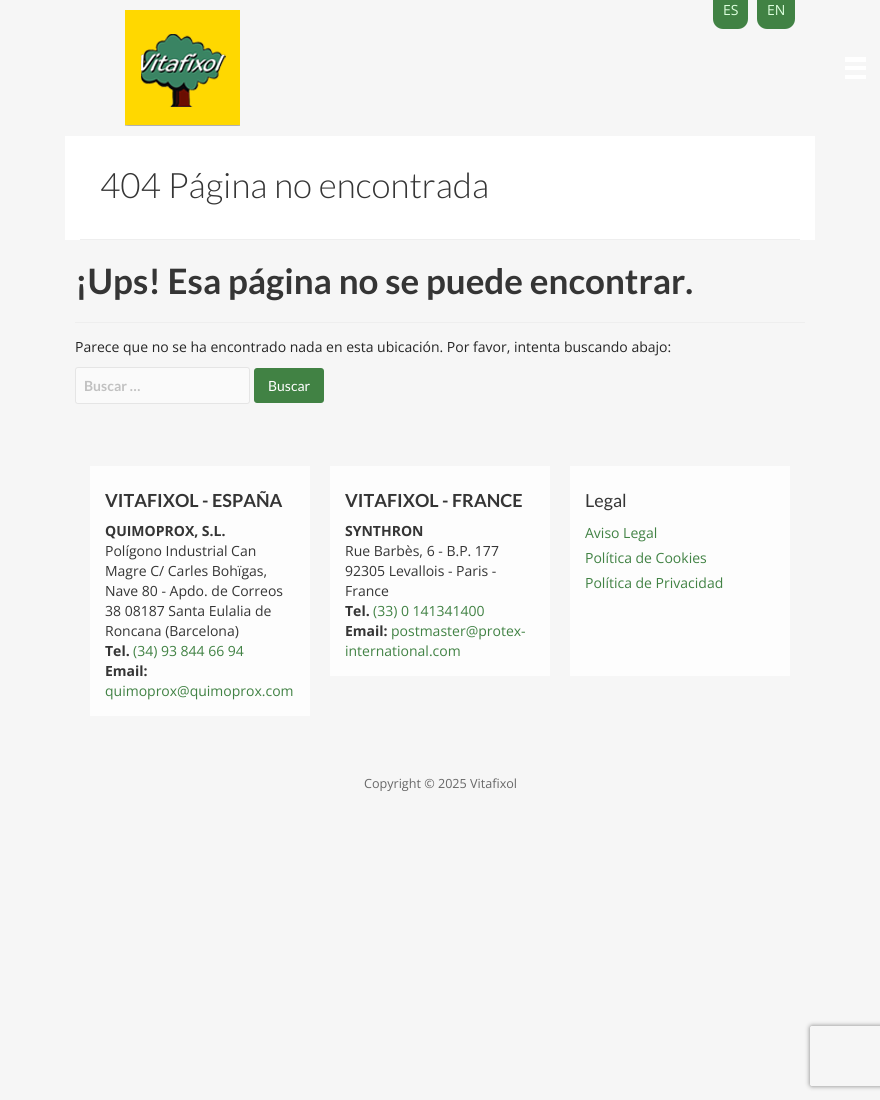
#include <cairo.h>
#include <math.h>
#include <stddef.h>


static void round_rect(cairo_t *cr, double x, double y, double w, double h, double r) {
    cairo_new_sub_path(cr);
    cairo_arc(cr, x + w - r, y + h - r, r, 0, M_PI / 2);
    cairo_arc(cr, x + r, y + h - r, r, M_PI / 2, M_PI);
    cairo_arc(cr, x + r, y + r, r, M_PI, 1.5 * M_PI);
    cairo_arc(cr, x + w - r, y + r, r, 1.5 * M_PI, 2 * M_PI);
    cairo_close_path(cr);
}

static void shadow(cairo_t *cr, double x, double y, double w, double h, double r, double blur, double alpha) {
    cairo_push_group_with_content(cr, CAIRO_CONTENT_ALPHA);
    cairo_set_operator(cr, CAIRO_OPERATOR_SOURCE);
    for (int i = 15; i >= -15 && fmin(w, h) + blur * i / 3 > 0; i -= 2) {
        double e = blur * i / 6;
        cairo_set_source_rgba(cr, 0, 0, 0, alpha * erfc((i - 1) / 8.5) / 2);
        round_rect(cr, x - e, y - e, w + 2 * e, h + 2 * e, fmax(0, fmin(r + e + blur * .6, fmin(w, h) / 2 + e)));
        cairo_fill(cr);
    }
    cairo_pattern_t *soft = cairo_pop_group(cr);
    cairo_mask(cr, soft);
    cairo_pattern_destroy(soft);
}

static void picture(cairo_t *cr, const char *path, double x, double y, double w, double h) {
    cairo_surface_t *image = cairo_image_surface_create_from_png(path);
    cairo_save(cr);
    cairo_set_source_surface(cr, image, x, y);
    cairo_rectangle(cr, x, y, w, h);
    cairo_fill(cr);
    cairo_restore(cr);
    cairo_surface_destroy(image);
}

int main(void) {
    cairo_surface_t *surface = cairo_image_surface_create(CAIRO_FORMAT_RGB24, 880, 1100);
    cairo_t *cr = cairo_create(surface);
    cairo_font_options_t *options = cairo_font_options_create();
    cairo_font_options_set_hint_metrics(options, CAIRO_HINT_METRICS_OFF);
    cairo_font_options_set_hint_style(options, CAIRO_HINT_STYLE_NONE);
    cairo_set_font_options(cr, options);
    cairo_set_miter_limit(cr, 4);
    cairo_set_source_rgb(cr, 0.961, 0.961, 0.961);
    cairo_paint(cr);
    picture(cr, "img1.png", 125, 10, 115, 116);
    cairo_set_source_rgb(cr, 0.255, 0.51, 0.267);
    cairo_new_path(cr);
    cairo_move_to(cr, 713, 0);
    cairo_line_to(cr, 748, 0);
    cairo_line_to(cr, 748, 19);
    cairo_curve_to(cr, 748, 24.5, 743.5, 29, 738, 29);
    cairo_line_to(cr, 723, 29);
    cairo_curve_to(cr, 717.5, 29, 713, 24.5, 713, 19);
    cairo_close_path(cr);
    cairo_fill(cr);
    cairo_select_font_face(cr, "Open Sans", CAIRO_FONT_SLANT_NORMAL, CAIRO_FONT_WEIGHT_NORMAL);
    cairo_set_font_size(cr, 14);
    cairo_set_source_rgb(cr, 0.867, 1, 0.867);
    cairo_move_to(cr, 723, 15);
    cairo_show_text(cr, "ES");
    cairo_set_source_rgb(cr, 0.255, 0.51, 0.267);
    cairo_new_path(cr);
    cairo_move_to(cr, 757, 0);
    cairo_line_to(cr, 795, 0);
    cairo_line_to(cr, 795, 19);
    cairo_curve_to(cr, 795, 24.5, 790.5, 29, 785, 29);
    cairo_line_to(cr, 767, 29);
    cairo_curve_to(cr, 761.5, 29, 757, 24.5, 757, 19);
    cairo_close_path(cr);
    cairo_fill(cr);
    cairo_set_source_rgb(cr, 0.867, 1, 0.867);
    cairo_move_to(cr, 767, 15);
    cairo_show_text(cr, "EN");
    cairo_set_source_rgb(cr, 1, 1, 1);
    cairo_rectangle(cr, 845, 57, 21, 5);
    cairo_fill(cr);
    cairo_rectangle(cr, 845, 66, 21, 4);
    cairo_fill(cr);
    cairo_rectangle(cr, 845, 75, 21, 4);
    cairo_fill(cr);
    cairo_rectangle(cr, 65, 136, 750, 104);
    cairo_fill(cr);
    cairo_set_source_rgb(cr, 0.933, 0.933, 0.933);
    cairo_rectangle(cr, 80, 239, 720, 1);
    cairo_fill(cr);
    cairo_select_font_face(cr, "Lato Light", CAIRO_FONT_SLANT_NORMAL, CAIRO_FONT_WEIGHT_NORMAL);
    cairo_set_font_size(cr, 35);
    cairo_set_source_rgb(cr, 0.208, 0.208, 0.208);
    cairo_move_to(cr, 100, 198);
    cairo_show_text(cr, "404 Página no encontrada");
    cairo_set_source_rgb(cr, 0.933, 0.933, 0.933);
    cairo_rectangle(cr, 75, 322, 730, 1);
    cairo_fill(cr);
    cairo_select_font_face(cr, "Lato", CAIRO_FONT_SLANT_NORMAL, CAIRO_FONT_WEIGHT_BOLD);
    cairo_set_source_rgb(cr, 0.208, 0.208, 0.208);
    cairo_move_to(cr, 75, 294);
    cairo_show_text(cr, "¡Ups! Esa página no se puede encontrar.");
    cairo_select_font_face(cr, "Open Sans", CAIRO_FONT_SLANT_NORMAL, CAIRO_FONT_WEIGHT_NORMAL);
    cairo_set_font_size(cr, 14);
    cairo_set_source_rgb(cr, 0.145, 0.145, 0.145);
    cairo_move_to(cr, 75, 352);
    cairo_show_text(cr, "Parece que no se ha encontrado nada en esta ubicación. Por favor, intenta buscando abajo:");
    cairo_set_source_rgb(cr, 0.98, 0.98, 0.98);
    round_rect(cr, 75.5, 367.5, 174, 36, 2.5);
    cairo_fill_preserve(cr);
    cairo_set_source_rgb(cr, 0.898, 0.898, 0.898);
    cairo_set_line_width(cr, 1);
    cairo_stroke(cr);
    cairo_select_font_face(cr, "Lato", CAIRO_FONT_SLANT_NORMAL, CAIRO_FONT_WEIGHT_BOLD);
    cairo_set_source_rgb(cr, 0.757, 0.757, 0.757);
    cairo_move_to(cr, 84, 391);
    cairo_show_text(cr, "Buscar …");
    cairo_set_source_rgb(cr, 0.255, 0.51, 0.267);
    round_rect(cr, 254, 368, 70, 35, 3);
    cairo_fill(cr);
    cairo_select_font_face(cr, "Lato", CAIRO_FONT_SLANT_NORMAL, CAIRO_FONT_WEIGHT_NORMAL);
    cairo_set_source_rgb(cr, 1, 1, 1);
    cairo_move_to(cr, 268, 391);
    cairo_show_text(cr, "Buscar");
    cairo_set_source_rgb(cr, 0.992, 0.992, 0.992);
    cairo_rectangle(cr, 90, 466, 220, 250);
    cairo_fill(cr);
    cairo_select_font_face(cr, "Lato", CAIRO_FONT_SLANT_NORMAL, CAIRO_FONT_WEIGHT_BOLD);
    cairo_set_font_size(cr, 18);
    cairo_set_source_rgb(cr, 0.208, 0.208, 0.208);
    cairo_move_to(cr, 105, 507);
    cairo_show_text(cr, "VITAFIXOL - ESPAÑA");
    cairo_select_font_face(cr, "Open Sans", CAIRO_FONT_SLANT_NORMAL, CAIRO_FONT_WEIGHT_BOLD);
    cairo_set_font_size(cr, 14);
    cairo_move_to(cr, 105, 536);
    cairo_show_text(cr, "QUIMOPROX, S.L.");
    cairo_select_font_face(cr, "Open Sans", CAIRO_FONT_SLANT_NORMAL, CAIRO_FONT_WEIGHT_NORMAL);
    cairo_move_to(cr, 105, 556);
    cairo_show_text(cr, "Polígono Industrial Can");
    cairo_move_to(cr, 105, 576);
    cairo_show_text(cr, "Magre C/ Carles Bohïgas,");
    cairo_move_to(cr, 105, 596);
    cairo_show_text(cr, "Nave 80 - Apdo. de Correos");
    cairo_move_to(cr, 105, 616);
    cairo_show_text(cr, "38 08187 Santa Eulalia de");
    cairo_move_to(cr, 105, 636);
    cairo_show_text(cr, "Roncana (Barcelona)");
    cairo_select_font_face(cr, "Open Sans", CAIRO_FONT_SLANT_NORMAL, CAIRO_FONT_WEIGHT_BOLD);
    cairo_move_to(cr, 105, 656);
    cairo_show_text(cr, "Tel.");
    cairo_select_font_face(cr, "Open Sans", CAIRO_FONT_SLANT_NORMAL, CAIRO_FONT_WEIGHT_NORMAL);
    cairo_set_source_rgb(cr, 0.255, 0.51, 0.267);
    cairo_move_to(cr, 133, 656);
    cairo_show_text(cr, "(34) 93 844 66 94");
    cairo_select_font_face(cr, "Open Sans", CAIRO_FONT_SLANT_NORMAL, CAIRO_FONT_WEIGHT_BOLD);
    cairo_set_source_rgb(cr, 0.208, 0.208, 0.208);
    cairo_move_to(cr, 105, 676);
    cairo_show_text(cr, "Email:");
    cairo_select_font_face(cr, "Open Sans", CAIRO_FONT_SLANT_NORMAL, CAIRO_FONT_WEIGHT_NORMAL);
    cairo_set_source_rgb(cr, 0.255, 0.51, 0.267);
    cairo_move_to(cr, 105, 696);
    cairo_show_text(cr, "quimoprox@quimoprox.com");
    cairo_set_source_rgb(cr, 0.992, 0.992, 0.992);
    cairo_rectangle(cr, 330, 466, 220, 210);
    cairo_fill(cr);
    cairo_select_font_face(cr, "Lato", CAIRO_FONT_SLANT_NORMAL, CAIRO_FONT_WEIGHT_BOLD);
    cairo_set_font_size(cr, 18);
    cairo_set_source_rgb(cr, 0.208, 0.208, 0.208);
    cairo_move_to(cr, 345, 507);
    cairo_show_text(cr, "VITAFIXOL - FRANCE");
    cairo_select_font_face(cr, "Open Sans", CAIRO_FONT_SLANT_NORMAL, CAIRO_FONT_WEIGHT_BOLD);
    cairo_set_font_size(cr, 14);
    cairo_move_to(cr, 345, 536);
    cairo_show_text(cr, "SYNTHRON");
    cairo_select_font_face(cr, "Open Sans", CAIRO_FONT_SLANT_NORMAL, CAIRO_FONT_WEIGHT_NORMAL);
    cairo_move_to(cr, 345, 556);
    cairo_show_text(cr, "Rue Barbès, 6 - B.P. 177");
    cairo_move_to(cr, 345, 576);
    cairo_show_text(cr, "92305 Levallois - Paris -");
    cairo_move_to(cr, 345, 596);
    cairo_show_text(cr, "France");
    cairo_select_font_face(cr, "Open Sans", CAIRO_FONT_SLANT_NORMAL, CAIRO_FONT_WEIGHT_BOLD);
    cairo_move_to(cr, 345, 616);
    cairo_show_text(cr, "Tel.");
    cairo_select_font_face(cr, "Open Sans", CAIRO_FONT_SLANT_NORMAL, CAIRO_FONT_WEIGHT_NORMAL);
    cairo_set_source_rgb(cr, 0.255, 0.51, 0.267);
    cairo_move_to(cr, 373, 616);
    cairo_show_text(cr, "(33) 0 141341400");
    cairo_select_font_face(cr, "Open Sans", CAIRO_FONT_SLANT_NORMAL, CAIRO_FONT_WEIGHT_BOLD);
    cairo_set_source_rgb(cr, 0.208, 0.208, 0.208);
    cairo_move_to(cr, 345, 636);
    cairo_show_text(cr, "Email:");
    cairo_select_font_face(cr, "Open Sans", CAIRO_FONT_SLANT_NORMAL, CAIRO_FONT_WEIGHT_NORMAL);
    cairo_set_source_rgb(cr, 0.255, 0.51, 0.267);
    cairo_move_to(cr, 391, 636);
    cairo_show_text(cr, "postmaster@protex-");
    cairo_move_to(cr, 345, 656);
    cairo_show_text(cr, "international.com");
    cairo_set_source_rgb(cr, 0.992, 0.992, 0.992);
    cairo_rectangle(cr, 570, 466, 220, 210);
    cairo_fill(cr);
    cairo_select_font_face(cr, "Lato", CAIRO_FONT_SLANT_NORMAL, CAIRO_FONT_WEIGHT_NORMAL);
    cairo_set_font_size(cr, 18);
    cairo_set_source_rgb(cr, 0.208, 0.208, 0.208);
    cairo_move_to(cr, 585, 507);
    cairo_show_text(cr, "Legal");
    cairo_select_font_face(cr, "Open Sans", CAIRO_FONT_SLANT_NORMAL, CAIRO_FONT_WEIGHT_NORMAL);
    cairo_set_font_size(cr, 14);
    cairo_set_source_rgb(cr, 0.255, 0.51, 0.267);
    cairo_move_to(cr, 585, 538);
    cairo_show_text(cr, "Aviso Legal");
    cairo_move_to(cr, 585, 563);
    cairo_show_text(cr, "Política de Cookies");
    cairo_move_to(cr, 585, 588);
    cairo_show_text(cr, "Política de Privacidad");
    cairo_set_font_size(cr, 12.6);
    cairo_set_source_rgb(cr, 0.408, 0.408, 0.408);
    cairo_move_to(cr, 364, 788);
    cairo_show_text(cr, "Copyright © 2025 Vitafixol");
    cairo_save(cr);
    cairo_set_fill_rule(cr, CAIRO_FILL_RULE_EVEN_ODD);
    cairo_new_path(cr);
    cairo_move_to(cr, 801, 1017);
    cairo_line_to(cr, 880, 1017);
    cairo_line_to(cr, 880, 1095);
    cairo_line_to(cr, 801, 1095);
    cairo_close_path(cr);
    cairo_move_to(cr, 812, 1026);
    cairo_line_to(cr, 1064, 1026);
    cairo_curve_to(cr, 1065, 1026, 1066, 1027, 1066, 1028);
    cairo_line_to(cr, 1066, 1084);
    cairo_curve_to(cr, 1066, 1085, 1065, 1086, 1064, 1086);
    cairo_line_to(cr, 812, 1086);
    cairo_curve_to(cr, 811, 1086, 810, 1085, 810, 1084);
    cairo_line_to(cr, 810, 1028);
    cairo_curve_to(cr, 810, 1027, 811, 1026, 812, 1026);
    cairo_close_path(cr);
    cairo_clip(cr);
    cairo_set_source_rgb(cr, 0.502, 0.502, 0.502);
    shadow(cr, 810, 1026, 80, 60, 2, 2.5, 1);
    cairo_restore(cr);
    cairo_surface_write_to_png(surface, "page.png");
    cairo_font_options_destroy(options);
    cairo_destroy(cr);
    cairo_surface_destroy(surface);
    return 0;
}
